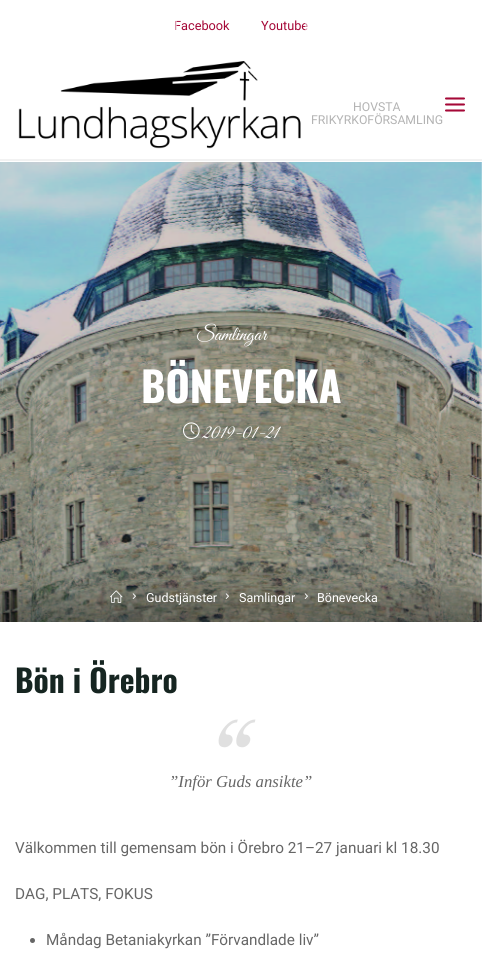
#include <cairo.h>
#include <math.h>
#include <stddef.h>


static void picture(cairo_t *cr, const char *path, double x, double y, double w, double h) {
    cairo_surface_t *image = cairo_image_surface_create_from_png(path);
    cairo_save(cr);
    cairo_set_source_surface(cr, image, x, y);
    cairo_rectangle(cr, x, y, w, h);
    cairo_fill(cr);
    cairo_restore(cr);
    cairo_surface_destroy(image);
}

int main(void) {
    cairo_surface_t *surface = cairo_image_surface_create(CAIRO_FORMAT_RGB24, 482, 963);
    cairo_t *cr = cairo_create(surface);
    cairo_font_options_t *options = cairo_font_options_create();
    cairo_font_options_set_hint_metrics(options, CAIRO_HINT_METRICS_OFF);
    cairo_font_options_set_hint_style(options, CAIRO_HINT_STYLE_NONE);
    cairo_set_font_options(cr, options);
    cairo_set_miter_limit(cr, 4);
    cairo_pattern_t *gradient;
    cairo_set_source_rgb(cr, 1, 1, 1);
    cairo_paint(cr);
    cairo_select_font_face(cr, "Roboto", CAIRO_FONT_SLANT_NORMAL, CAIRO_FONT_WEIGHT_NORMAL);
    cairo_set_font_size(cr, 12.75);
    cairo_set_source_rgb(cr, 0.647, 0.031, 0.216);
    cairo_move_to(cr, 174, 30);
    cairo_show_text(cr, "Facebook");
    cairo_move_to(cr, 261, 30);
    cairo_show_text(cr, "Youtube");
    gradient = cairo_pattern_create_linear(157, 26, 177, 26);
    cairo_pattern_add_color_stop_rgba(gradient, 0, 1, 1, 1, 1);
    cairo_pattern_add_color_stop_rgba(gradient, 1, 1, 1, 1, 0.5);
    cairo_set_source(cr, gradient);
    cairo_pattern_destroy(gradient);
    cairo_rectangle(cr, 175, 20, 2, 10);
    cairo_fill(cr);
    gradient = cairo_pattern_create_linear(325, 26, 305, 26);
    cairo_pattern_add_color_stop_rgba(gradient, 0, 1, 1, 1, 1);
    cairo_pattern_add_color_stop_rgba(gradient, 1, 1, 1, 1, 0.5);
    cairo_set_source(cr, gradient);
    cairo_pattern_destroy(gradient);
    cairo_rectangle(cr, 305, 23, 3, 7);
    cairo_fill(cr);
    picture(cr, "img1.png", 18, 61, 283, 88);
    cairo_set_font_size(cr, 12.25);
    cairo_set_source_rgb(cr, 0.702, 0.702, 0.702);
    cairo_move_to(cr, 353, 111);
    cairo_show_text(cr, "HOVSTA");
    cairo_move_to(cr, 311, 124);
    cairo_show_text(cr, "FRIKYRKOFÖRSAMLING");
    picture(cr, "img2.png", 445, 97, 20, 15);
    cairo_set_source_rgb(cr, 0.949, 0.949, 0.949);
    cairo_rectangle(cr, 0, 159, 482, 2);
    cairo_fill(cr);
    picture(cr, "img3.png", 0, 162, 482, 460);
    cairo_select_font_face(cr, "Great Vibes", CAIRO_FONT_SLANT_NORMAL, CAIRO_FONT_WEIGHT_NORMAL);
    cairo_set_font_size(cr, 20);
    cairo_set_source_rgb(cr, 1, 1, 1);
    cairo_move_to(cr, 196, 340);
    cairo_show_text(cr, "Samlingar");
    cairo_select_font_face(cr, "Oswald", CAIRO_FONT_SLANT_NORMAL, CAIRO_FONT_WEIGHT_BOLD);
    cairo_set_font_size(cr, 41.5);
    cairo_move_to(cr, 141, 403);
    cairo_show_text(cr, "BÖNEVECKA");
    picture(cr, "img4.png", 183, 422, 17, 17);
    cairo_select_font_face(cr, "Great Vibes", CAIRO_FONT_SLANT_NORMAL, CAIRO_FONT_WEIGHT_NORMAL);
    cairo_set_font_size(cr, 20);
    cairo_move_to(cr, 203, 438);
    cairo_show_text(cr, "2019-01-21");
    gradient = cairo_pattern_create_linear(241, 569, 241, 622);
    cairo_pattern_add_color_stop_rgba(gradient, 0, 0, 0, 0, 0);
    cairo_pattern_add_color_stop_rgba(gradient, 1, 0, 0, 0, 0.3);
    cairo_set_source(cr, gradient);
    cairo_pattern_destroy(gradient);
    cairo_rectangle(cr, 0, 573, 482, 49);
    cairo_fill(cr);
    picture(cr, "img5.png", 110, 590, 13, 13);
    picture(cr, "img6.png", 132, 593, 4, 6);
    cairo_select_font_face(cr, "Roboto", CAIRO_FONT_SLANT_NORMAL, CAIRO_FONT_WEIGHT_NORMAL);
    cairo_set_font_size(cr, 12.5);
    cairo_set_source_rgb(cr, 1, 1, 1);
    cairo_move_to(cr, 146, 602);
    cairo_show_text(cr, "Gudstjänster");
    picture(cr, "img7.png", 225, 593, 4, 6);
    cairo_move_to(cr, 239, 602);
    cairo_show_text(cr, "Samlingar");
    picture(cr, "img8.png", 304, 593, 4, 6);
    cairo_move_to(cr, 317, 602);
    cairo_show_text(cr, "Bönevecka");
    cairo_select_font_face(cr, "Oswald", CAIRO_FONT_SLANT_NORMAL, CAIRO_FONT_WEIGHT_BOLD);
    cairo_set_font_size(cr, 31.5);
    cairo_set_source_rgb(cr, 0.086, 0.145, 0.129);
    cairo_move_to(cr, 15, 693);
    cairo_show_text(cr, "Bön i Örebro");
    picture(cr, "img9.png", 218, 719, 38, 29);
    cairo_select_font_face(cr, "Liberation Serif", CAIRO_FONT_SLANT_ITALIC, CAIRO_FONT_WEIGHT_NORMAL);
    cairo_set_font_size(cr, 16.75);
    cairo_set_source_rgb(cr, 0.4, 0.4, 0.4);
    cairo_move_to(cr, 169, 787);
    cairo_show_text(cr, "”Inför Guds ansikte”");
    cairo_select_font_face(cr, "Roboto", CAIRO_FONT_SLANT_NORMAL, CAIRO_FONT_WEIGHT_NORMAL);
    cairo_set_font_size(cr, 15.3);
    cairo_move_to(cr, 15, 853);
    cairo_show_text(cr, "Välkommen till gemensam bön i Örebro 21–27 januari kl 18.30");
    cairo_move_to(cr, 15, 899);
    cairo_show_text(cr, "DAG, PLATS, FOKUS");
    cairo_new_path(cr);
    cairo_arc(cr, 32.5, 940.5, 2.5, 0, 2 * M_PI);
    cairo_fill(cr);
    cairo_move_to(cr, 46, 945);
    cairo_show_text(cr, "Måndag Betaniakyrkan ”Förvandlade liv”");
    cairo_surface_write_to_png(surface, "page.png");
    cairo_font_options_destroy(options);
    cairo_destroy(cr);
    cairo_surface_destroy(surface);
    return 0;
}
